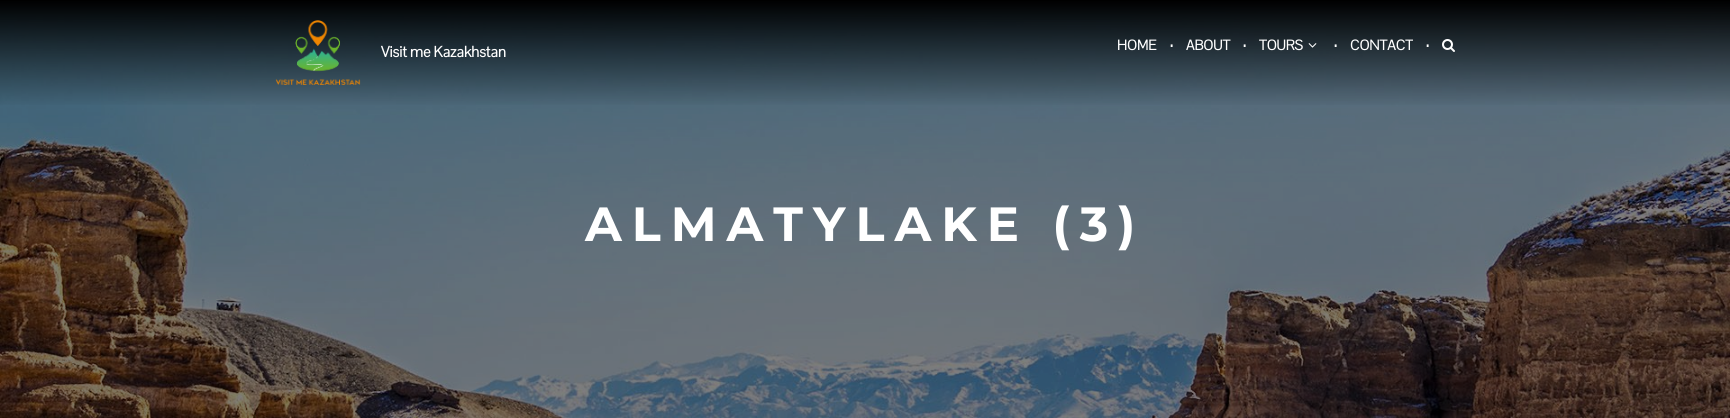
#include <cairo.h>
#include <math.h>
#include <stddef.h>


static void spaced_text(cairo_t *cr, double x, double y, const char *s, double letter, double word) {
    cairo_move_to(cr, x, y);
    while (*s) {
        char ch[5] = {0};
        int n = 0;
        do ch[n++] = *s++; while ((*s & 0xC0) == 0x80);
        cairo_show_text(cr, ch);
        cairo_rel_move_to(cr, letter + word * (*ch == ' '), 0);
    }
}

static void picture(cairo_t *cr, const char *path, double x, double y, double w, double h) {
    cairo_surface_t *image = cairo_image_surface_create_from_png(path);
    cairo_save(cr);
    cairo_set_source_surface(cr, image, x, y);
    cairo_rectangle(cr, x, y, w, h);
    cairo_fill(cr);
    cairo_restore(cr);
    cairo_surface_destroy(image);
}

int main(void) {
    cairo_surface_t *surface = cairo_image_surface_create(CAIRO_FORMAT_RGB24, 1730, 418);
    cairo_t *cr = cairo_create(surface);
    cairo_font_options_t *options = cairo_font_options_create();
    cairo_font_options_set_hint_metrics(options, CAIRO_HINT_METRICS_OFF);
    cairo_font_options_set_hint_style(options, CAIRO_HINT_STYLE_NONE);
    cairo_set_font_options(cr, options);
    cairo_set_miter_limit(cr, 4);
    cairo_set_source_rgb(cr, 1, 1, 1);
    cairo_paint(cr);
    picture(cr, "img4.png", 0, 0, 1730, 418);
    picture(cr, "img1.png", 275, 20, 86, 65);
    cairo_select_font_face(cr, "Pontano Sans", CAIRO_FONT_SLANT_NORMAL, CAIRO_FONT_WEIGHT_BOLD);
    cairo_set_font_size(cr, 15);
    cairo_set_source_rgb(cr, 1, 1, 1);
    cairo_move_to(cr, 381, 57);
    cairo_show_text(cr, "Visit me Kazakhstan");
    cairo_set_font_size(cr, 14);
    cairo_move_to(cr, 1117, 50);
    cairo_show_text(cr, "HOME");
    cairo_select_font_face(cr, "Pontano Sans Light", CAIRO_FONT_SLANT_NORMAL, CAIRO_FONT_WEIGHT_NORMAL);
    cairo_set_font_size(cr, 25);
    cairo_move_to(cr, 1169, 47);
    cairo_show_text(cr, ".");
    cairo_select_font_face(cr, "Pontano Sans", CAIRO_FONT_SLANT_NORMAL, CAIRO_FONT_WEIGHT_BOLD);
    cairo_set_font_size(cr, 14);
    cairo_move_to(cr, 1186, 50);
    cairo_show_text(cr, "ABOUT");
    cairo_select_font_face(cr, "Pontano Sans Light", CAIRO_FONT_SLANT_NORMAL, CAIRO_FONT_WEIGHT_NORMAL);
    cairo_set_font_size(cr, 25);
    cairo_move_to(cr, 1242, 47);
    cairo_show_text(cr, ".");
    cairo_select_font_face(cr, "Pontano Sans", CAIRO_FONT_SLANT_NORMAL, CAIRO_FONT_WEIGHT_BOLD);
    cairo_set_font_size(cr, 14);
    cairo_move_to(cr, 1259, 50);
    cairo_show_text(cr, "TOURS");
    picture(cr, "img2.png", 1308, 43, 9, 5);
    cairo_select_font_face(cr, "Pontano Sans Light", CAIRO_FONT_SLANT_NORMAL, CAIRO_FONT_WEIGHT_NORMAL);
    cairo_set_font_size(cr, 25);
    cairo_move_to(cr, 1333, 47);
    cairo_show_text(cr, ".");
    cairo_select_font_face(cr, "Pontano Sans", CAIRO_FONT_SLANT_NORMAL, CAIRO_FONT_WEIGHT_BOLD);
    cairo_set_font_size(cr, 14);
    cairo_move_to(cr, 1350, 50);
    cairo_show_text(cr, "CONTACT");
    cairo_select_font_face(cr, "Pontano Sans Light", CAIRO_FONT_SLANT_NORMAL, CAIRO_FONT_WEIGHT_NORMAL);
    cairo_set_font_size(cr, 25);
    cairo_move_to(cr, 1425, 47);
    cairo_show_text(cr, ".");
    picture(cr, "img3.png", 1442, 39, 13, 13);
    cairo_select_font_face(cr, "Montserrat Thin", CAIRO_FONT_SLANT_NORMAL, CAIRO_FONT_WEIGHT_NORMAL);
    cairo_set_font_size(cr, 48);
    spaced_text(cr, 585, 241, "ALMATYLAKE (3)", 10, 0);
    cairo_surface_write_to_png(surface, "page.png");
    cairo_font_options_destroy(options);
    cairo_destroy(cr);
    cairo_surface_destroy(surface);
    return 0;
}
